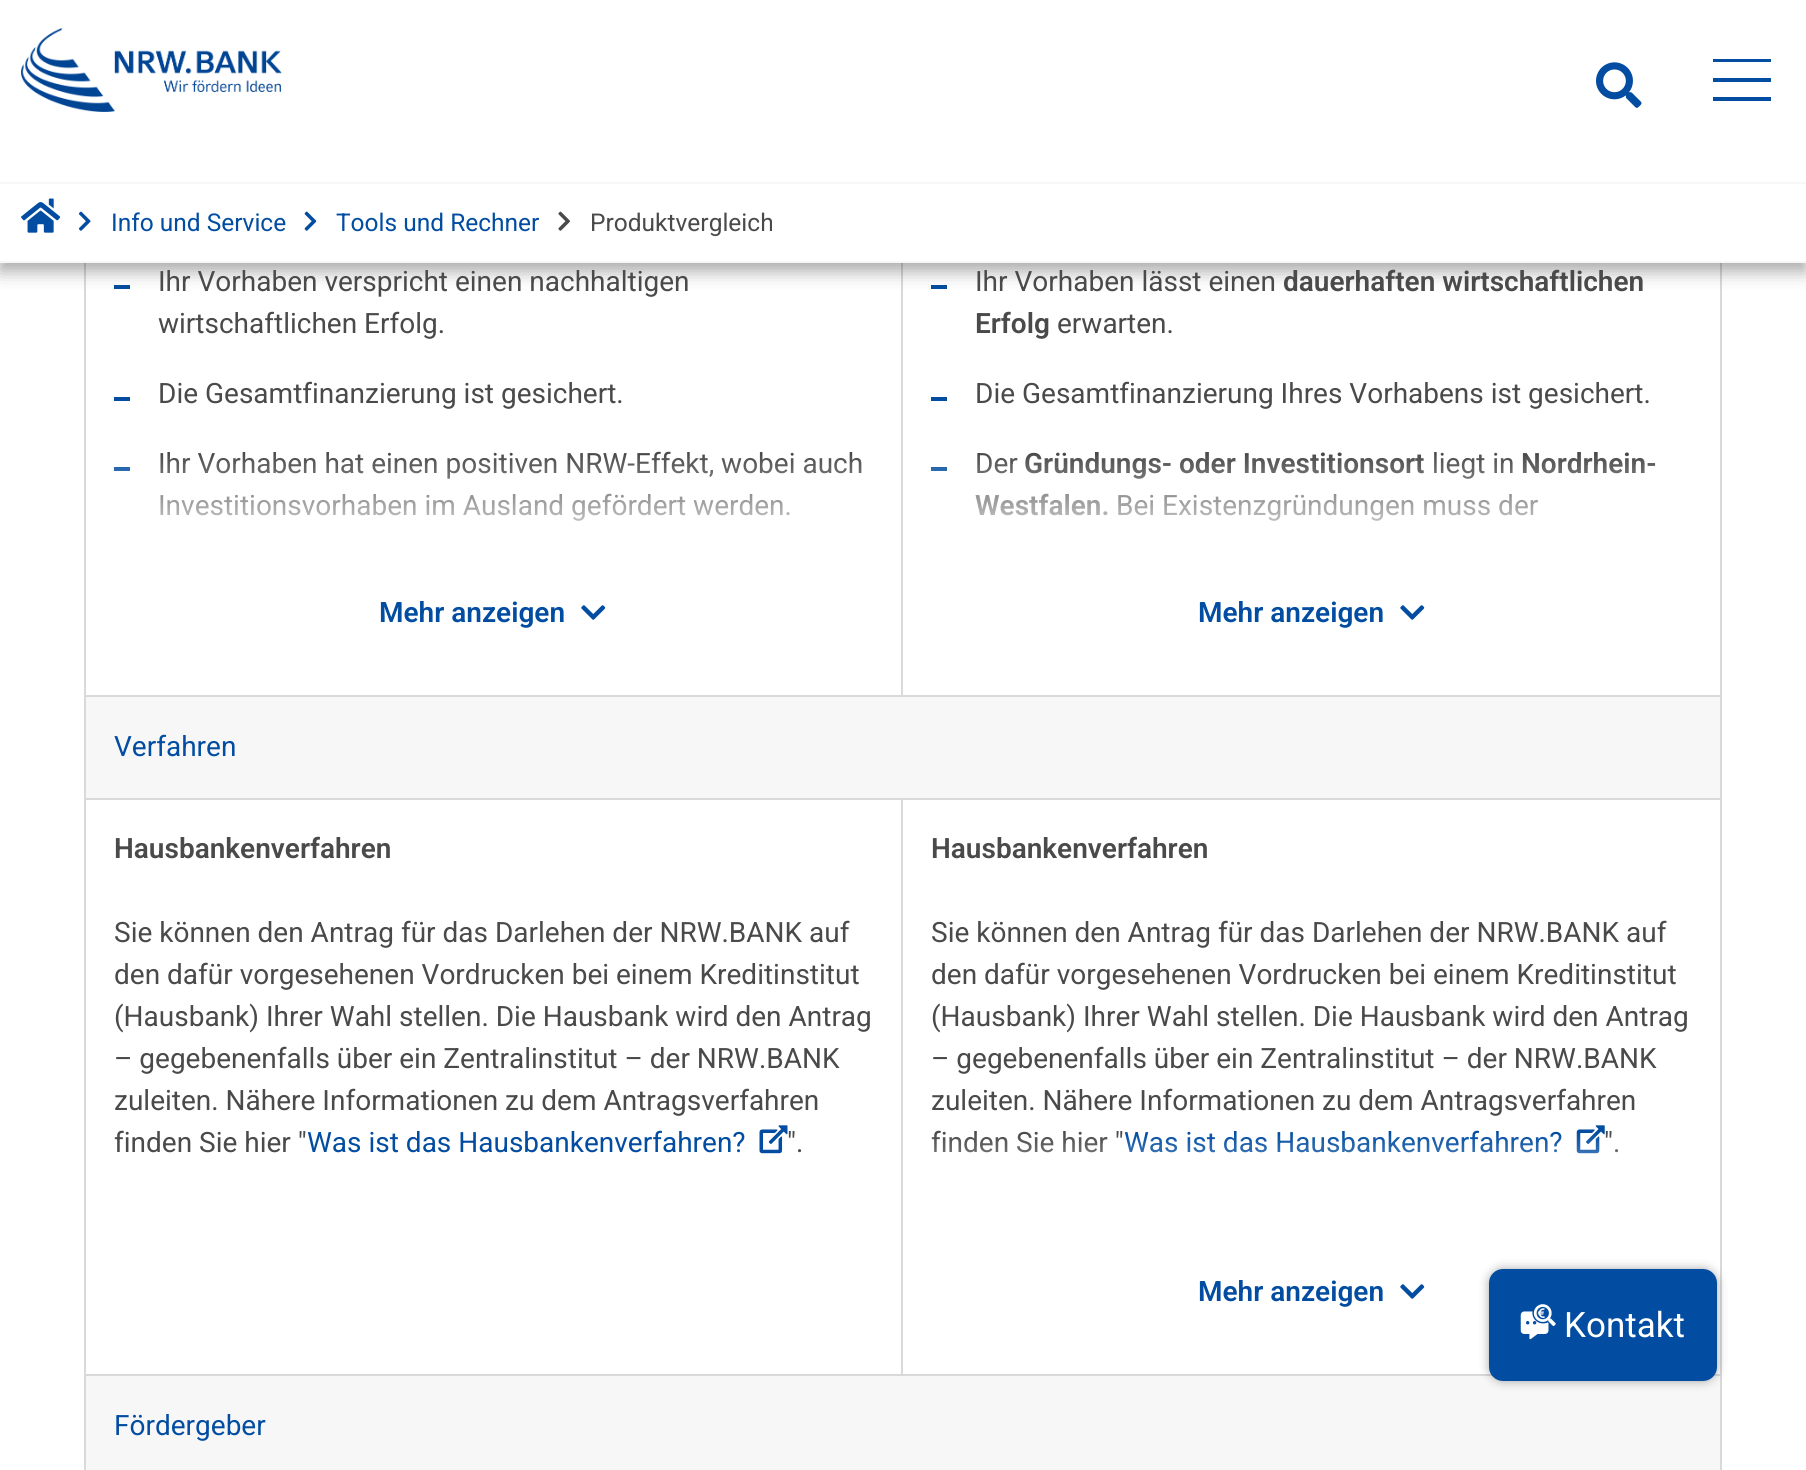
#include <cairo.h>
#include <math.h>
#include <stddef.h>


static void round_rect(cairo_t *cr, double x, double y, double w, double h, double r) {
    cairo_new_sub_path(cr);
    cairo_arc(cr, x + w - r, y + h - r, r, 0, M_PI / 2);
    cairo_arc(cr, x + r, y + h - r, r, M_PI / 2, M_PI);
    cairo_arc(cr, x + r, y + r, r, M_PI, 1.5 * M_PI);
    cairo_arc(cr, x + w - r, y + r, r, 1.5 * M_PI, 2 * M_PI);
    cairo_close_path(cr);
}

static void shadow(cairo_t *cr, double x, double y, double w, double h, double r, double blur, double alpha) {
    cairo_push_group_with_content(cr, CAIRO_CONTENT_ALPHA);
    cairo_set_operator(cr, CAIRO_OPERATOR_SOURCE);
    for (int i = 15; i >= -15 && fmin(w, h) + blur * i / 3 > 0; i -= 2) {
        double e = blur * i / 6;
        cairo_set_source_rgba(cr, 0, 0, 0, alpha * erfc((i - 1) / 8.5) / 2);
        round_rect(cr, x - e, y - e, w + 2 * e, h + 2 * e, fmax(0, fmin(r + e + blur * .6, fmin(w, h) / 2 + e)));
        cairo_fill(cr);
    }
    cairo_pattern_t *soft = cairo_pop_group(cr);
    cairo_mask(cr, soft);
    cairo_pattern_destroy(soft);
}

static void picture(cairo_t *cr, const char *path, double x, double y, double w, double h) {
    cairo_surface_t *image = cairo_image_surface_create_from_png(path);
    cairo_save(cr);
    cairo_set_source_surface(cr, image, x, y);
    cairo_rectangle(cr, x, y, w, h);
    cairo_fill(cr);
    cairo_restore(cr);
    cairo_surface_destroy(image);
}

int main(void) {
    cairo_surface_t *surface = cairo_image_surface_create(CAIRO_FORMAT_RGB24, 1806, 1470);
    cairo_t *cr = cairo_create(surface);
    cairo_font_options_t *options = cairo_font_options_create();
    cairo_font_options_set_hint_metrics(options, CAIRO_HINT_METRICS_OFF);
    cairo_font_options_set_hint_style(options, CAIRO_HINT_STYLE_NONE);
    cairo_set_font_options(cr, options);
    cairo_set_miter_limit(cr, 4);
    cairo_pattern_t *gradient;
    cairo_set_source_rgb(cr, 1, 1, 1);
    cairo_paint(cr);
    cairo_rectangle(cr, 85, -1, 1636, 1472);
    cairo_set_source_rgb(cr, 0.851, 0.851, 0.851);
    cairo_stroke(cr);
    cairo_rectangle(cr, 901, 263, 2, 434);
    cairo_fill(cr);
    cairo_set_source_rgb(cr, 0.008, 0.302, 0.631);
    cairo_rectangle(cr, 114, 285, 16, 4);
    cairo_fill(cr);
    cairo_rectangle(cr, 931, 285, 16, 4);
    cairo_fill(cr);
    cairo_set_source_rgb(cr, 0, 0, 0);
    shadow(cr, 0, 9, 1806, 262, 0, 9, 0.35);
    cairo_set_source_rgb(cr, 1, 1, 1);
    cairo_rectangle(cr, 0, 0, 1806, 261);
    cairo_fill(cr);
    picture(cr, "img1.png", 21, 28, 261, 84);
    picture(cr, "img2.png", 1596, 62, 46, 46);
    cairo_set_source_rgb(cr, 0.008, 0.302, 0.631);
    cairo_new_path(cr);
    cairo_move_to(cr, 1713, 59);
    cairo_line_to(cr, 1771, 59);
    cairo_line_to(cr, 1771, 62);
    cairo_line_to(cr, 1713, 62);
    cairo_close_path(cr);
    cairo_move_to(cr, 1713, 78);
    cairo_line_to(cr, 1771, 78);
    cairo_line_to(cr, 1771, 82);
    cairo_line_to(cr, 1713, 82);
    cairo_close_path(cr);
    cairo_move_to(cr, 1713, 97);
    cairo_line_to(cr, 1771, 97);
    cairo_line_to(cr, 1771, 101);
    cairo_line_to(cr, 1713, 101);
    cairo_close_path(cr);
    cairo_fill(cr);
    cairo_set_source_rgb(cr, 0.965, 0.965, 0.965);
    cairo_rectangle(cr, 0, 182, 1806, 2);
    cairo_fill(cr);
    cairo_rectangle(cr, 0, 261, 1806, 2);
    cairo_fill(cr);
    picture(cr, "img3.png", 21, 198, 40, 35);
    picture(cr, "img4.png", 78, 211, 13, 20);
    cairo_select_font_face(cr, "Roboto", CAIRO_FONT_SLANT_NORMAL, CAIRO_FONT_WEIGHT_NORMAL);
    cairo_set_font_size(cr, 24.5);
    cairo_set_source_rgb(cr, 0.008, 0.302, 0.631);
    cairo_move_to(cr, 111, 231);
    cairo_show_text(cr, "Info und Service");
    picture(cr, "img5.png", 304, 211, 13, 20);
    cairo_move_to(cr, 336, 231);
    cairo_show_text(cr, "Tools und Rechner");
    picture(cr, "img6.png", 558, 211, 12, 20);
    cairo_set_source_rgb(cr, 0.29, 0.29, 0.29);
    cairo_move_to(cr, 590, 231);
    cairo_show_text(cr, "Produktvergleich");
    cairo_set_source_rgb(cr, 0.851, 0.851, 0.851);
    cairo_rectangle(cr, 86, 695, 1634, 2);
    cairo_fill(cr);
    cairo_set_font_size(cr, 28);
    cairo_set_source_rgb(cr, 0.29, 0.29, 0.29);
    cairo_move_to(cr, 158, 291);
    cairo_show_text(cr, "Ihr Vorhaben verspricht einen nachhaltigen");
    cairo_move_to(cr, 158, 333);
    cairo_show_text(cr, "wirtschaftlichen Erfolg.");
    cairo_set_source_rgb(cr, 0.008, 0.302, 0.631);
    cairo_rectangle(cr, 114, 397, 16, 4);
    cairo_fill(cr);
    cairo_set_source_rgb(cr, 0.29, 0.29, 0.29);
    cairo_move_to(cr, 158, 403);
    cairo_show_text(cr, "Die Gesamtfinanzierung ist gesichert.");
    cairo_set_source_rgb(cr, 0.008, 0.302, 0.631);
    cairo_rectangle(cr, 114, 467, 16, 4);
    cairo_fill(cr);
    cairo_set_source_rgb(cr, 0.29, 0.29, 0.29);
    cairo_move_to(cr, 158, 473);
    cairo_show_text(cr, "Ihr Vorhaben hat einen positiven NRW-Effekt, wobei auch");
    cairo_move_to(cr, 158, 515);
    cairo_show_text(cr, "Investitionsvorhaben im Ausland gefördert werden.");
    gradient = cairo_pattern_create_linear(494, 453, 494, 558);
    cairo_pattern_add_color_stop_rgba(gradient, 0, 1, 1, 1, 0);
    cairo_pattern_add_color_stop_rgba(gradient, 1, 1, 1, 1, 1);
    cairo_set_source(cr, gradient);
    cairo_pattern_destroy(gradient);
    cairo_rectangle(cr, 114, 455, 747, 66);
    cairo_fill(cr);
    cairo_select_font_face(cr, "Roboto SemiBold", CAIRO_FONT_SLANT_NORMAL, CAIRO_FONT_WEIGHT_NORMAL);
    cairo_set_source_rgb(cr, 0.008, 0.302, 0.631);
    cairo_move_to(cr, 379, 622);
    cairo_show_text(cr, "Mehr anzeigen");
    picture(cr, "img7.png", 581, 605, 25, 15);
    cairo_select_font_face(cr, "Roboto", CAIRO_FONT_SLANT_NORMAL, CAIRO_FONT_WEIGHT_NORMAL);
    cairo_set_source_rgb(cr, 0.29, 0.29, 0.29);
    cairo_move_to(cr, 975, 291);
    cairo_show_text(cr, "Ihr Vorhaben lässt einen");
    cairo_select_font_face(cr, "Roboto SemiBold", CAIRO_FONT_SLANT_NORMAL, CAIRO_FONT_WEIGHT_NORMAL);
    cairo_move_to(cr, 1283, 291);
    cairo_show_text(cr, "dauerhaften wirtschaftlichen");
    cairo_move_to(cr, 975, 333);
    cairo_show_text(cr, "Erfolg");
    cairo_select_font_face(cr, "Roboto", CAIRO_FONT_SLANT_NORMAL, CAIRO_FONT_WEIGHT_NORMAL);
    cairo_move_to(cr, 1057, 333);
    cairo_show_text(cr, "erwarten.");
    cairo_set_source_rgb(cr, 0.008, 0.302, 0.631);
    cairo_rectangle(cr, 931, 397, 16, 4);
    cairo_fill(cr);
    cairo_set_source_rgb(cr, 0.29, 0.29, 0.29);
    cairo_move_to(cr, 975, 403);
    cairo_show_text(cr, "Die Gesamtfinanzierung Ihres Vorhabens ist gesichert.");
    cairo_set_source_rgb(cr, 0.008, 0.302, 0.631);
    cairo_rectangle(cr, 931, 467, 16, 4);
    cairo_fill(cr);
    cairo_set_source_rgb(cr, 0.29, 0.29, 0.29);
    cairo_move_to(cr, 975, 473);
    cairo_show_text(cr, "Der");
    cairo_select_font_face(cr, "Roboto SemiBold", CAIRO_FONT_SLANT_NORMAL, CAIRO_FONT_WEIGHT_NORMAL);
    cairo_move_to(cr, 1024, 473);
    cairo_show_text(cr, "Gründungs- oder Investitionsort");
    cairo_select_font_face(cr, "Roboto", CAIRO_FONT_SLANT_NORMAL, CAIRO_FONT_WEIGHT_NORMAL);
    cairo_move_to(cr, 1432, 473);
    cairo_show_text(cr, "liegt in");
    cairo_select_font_face(cr, "Roboto SemiBold", CAIRO_FONT_SLANT_NORMAL, CAIRO_FONT_WEIGHT_NORMAL);
    cairo_move_to(cr, 1521, 473);
    cairo_show_text(cr, "Nordrhein-");
    cairo_move_to(cr, 975, 515);
    cairo_show_text(cr, "Westfalen.");
    cairo_select_font_face(cr, "Roboto", CAIRO_FONT_SLANT_NORMAL, CAIRO_FONT_WEIGHT_NORMAL);
    cairo_move_to(cr, 1116, 515);
    cairo_show_text(cr, "Bei Existenzgründungen muss der");
    gradient = cairo_pattern_create_linear(1312, 453, 1312, 558);
    cairo_pattern_add_color_stop_rgba(gradient, 0, 1, 1, 1, 0);
    cairo_pattern_add_color_stop_rgba(gradient, 1, 1, 1, 1, 1);
    cairo_set_source(cr, gradient);
    cairo_pattern_destroy(gradient);
    cairo_rectangle(cr, 931, 455, 725, 66);
    cairo_fill(cr);
    cairo_select_font_face(cr, "Roboto SemiBold", CAIRO_FONT_SLANT_NORMAL, CAIRO_FONT_WEIGHT_NORMAL);
    cairo_set_source_rgb(cr, 0.008, 0.302, 0.631);
    cairo_move_to(cr, 1198, 622);
    cairo_show_text(cr, "Mehr anzeigen");
    picture(cr, "img7.png", 1400, 605, 25, 15);
    cairo_set_source_rgb(cr, 0.965, 0.965, 0.965);
    cairo_rectangle(cr, 86, 697, 1634, 101);
    cairo_fill(cr);
    cairo_set_source_rgb(cr, 0.851, 0.851, 0.851);
    cairo_rectangle(cr, 86, 798, 1634, 2);
    cairo_fill(cr);
    cairo_select_font_face(cr, "Roboto", CAIRO_FONT_SLANT_NORMAL, CAIRO_FONT_WEIGHT_NORMAL);
    cairo_set_source_rgb(cr, 0.008, 0.302, 0.631);
    cairo_move_to(cr, 114, 756);
    cairo_show_text(cr, "Verfahren");
    cairo_set_source_rgb(cr, 0.851, 0.851, 0.851);
    cairo_rectangle(cr, 901, 800, 2, 576);
    cairo_fill(cr);
    cairo_rectangle(cr, 86, 1374, 1634, 2);
    cairo_fill(cr);
    cairo_select_font_face(cr, "Roboto SemiBold", CAIRO_FONT_SLANT_NORMAL, CAIRO_FONT_WEIGHT_NORMAL);
    cairo_set_source_rgb(cr, 0.29, 0.29, 0.29);
    cairo_move_to(cr, 114, 858);
    cairo_show_text(cr, "Hausbankenverfahren");
    cairo_select_font_face(cr, "Roboto", CAIRO_FONT_SLANT_NORMAL, CAIRO_FONT_WEIGHT_NORMAL);
    cairo_move_to(cr, 114, 942);
    cairo_show_text(cr, "Sie können den Antrag für das Darlehen der NRW.BANK auf");
    cairo_move_to(cr, 114, 984);
    cairo_show_text(cr, "den dafür vorgesehenen Vordrucken bei einem Kreditinstitut");
    cairo_move_to(cr, 114, 1026);
    cairo_show_text(cr, "(Hausbank) Ihrer Wahl stellen. Die Hausbank wird den Antrag");
    cairo_move_to(cr, 114, 1068);
    cairo_show_text(cr, "– gegebenenfalls über ein Zentralinstitut – der NRW.BANK");
    cairo_move_to(cr, 114, 1110);
    cairo_show_text(cr, "zuleiten. Nähere Informationen zu dem Antragsverfahren");
    cairo_move_to(cr, 114, 1152);
    cairo_show_text(cr, "finden Sie hier \"");
    cairo_set_source_rgb(cr, 0.008, 0.302, 0.631);
    cairo_move_to(cr, 307, 1152);
    cairo_show_text(cr, "Was ist das Hausbankenverfahren?");
    picture(cr, "img8.png", 759, 1125, 29, 29);
    cairo_set_source_rgb(cr, 0.29, 0.29, 0.29);
    cairo_move_to(cr, 787, 1152);
    cairo_show_text(cr, "\".");
    cairo_select_font_face(cr, "Roboto SemiBold", CAIRO_FONT_SLANT_NORMAL, CAIRO_FONT_WEIGHT_NORMAL);
    cairo_move_to(cr, 931, 858);
    cairo_show_text(cr, "Hausbankenverfahren");
    cairo_select_font_face(cr, "Roboto", CAIRO_FONT_SLANT_NORMAL, CAIRO_FONT_WEIGHT_NORMAL);
    cairo_move_to(cr, 931, 942);
    cairo_show_text(cr, "Sie können den Antrag für das Darlehen der NRW.BANK auf");
    cairo_move_to(cr, 931, 984);
    cairo_show_text(cr, "den dafür vorgesehenen Vordrucken bei einem Kreditinstitut");
    cairo_move_to(cr, 931, 1026);
    cairo_show_text(cr, "(Hausbank) Ihrer Wahl stellen. Die Hausbank wird den Antrag");
    cairo_move_to(cr, 931, 1068);
    cairo_show_text(cr, "– gegebenenfalls über ein Zentralinstitut – der NRW.BANK");
    cairo_move_to(cr, 931, 1110);
    cairo_show_text(cr, "zuleiten. Nähere Informationen zu dem Antragsverfahren");
    cairo_move_to(cr, 931, 1152);
    cairo_show_text(cr, "finden Sie hier \"");
    cairo_set_source_rgb(cr, 0.008, 0.302, 0.631);
    cairo_move_to(cr, 1124, 1152);
    cairo_show_text(cr, "Was ist das Hausbankenverfahren?");
    picture(cr, "img9.png", 1576, 1125, 29, 29);
    cairo_set_source_rgb(cr, 0.29, 0.29, 0.29);
    cairo_move_to(cr, 1604, 1152);
    cairo_show_text(cr, "\".");
    gradient = cairo_pattern_create_linear(1312, 1132, 1312, 1237);
    cairo_pattern_add_color_stop_rgba(gradient, 0, 1, 1, 1, 0);
    cairo_pattern_add_color_stop_rgba(gradient, 1, 1, 1, 1, 1);
    cairo_set_source(cr, gradient);
    cairo_pattern_destroy(gradient);
    cairo_rectangle(cr, 931, 1134, 688, 20);
    cairo_fill(cr);
    cairo_select_font_face(cr, "Roboto SemiBold", CAIRO_FONT_SLANT_NORMAL, CAIRO_FONT_WEIGHT_NORMAL);
    cairo_set_source_rgb(cr, 0.008, 0.302, 0.631);
    cairo_move_to(cr, 1198, 1301);
    cairo_show_text(cr, "Mehr anzeigen");
    picture(cr, "img7.png", 1400, 1284, 25, 15);
    cairo_set_source_rgb(cr, 0.965, 0.965, 0.965);
    cairo_rectangle(cr, 86, 1376, 1634, 94);
    cairo_fill(cr);
    cairo_select_font_face(cr, "Roboto", CAIRO_FONT_SLANT_NORMAL, CAIRO_FONT_WEIGHT_NORMAL);
    cairo_set_source_rgb(cr, 0.008, 0.302, 0.631);
    cairo_move_to(cr, 114, 1435);
    cairo_show_text(cr, "Fördergeber");
    cairo_set_source_rgb(cr, 0, 0, 0);
    shadow(cr, 1489, 1269, 228, 112, 14, 5, 0.35);
    cairo_set_source_rgb(cr, 0.008, 0.302, 0.631);
    round_rect(cr, 1490, 1270, 226, 110, 13);
    cairo_fill_preserve(cr);
    cairo_stroke(cr);
    picture(cr, "img10.png", 1520, 1304, 36, 36);
    cairo_set_font_size(cr, 35);
    cairo_set_source_rgb(cr, 1, 1, 1);
    cairo_move_to(cr, 1564, 1337);
    cairo_show_text(cr, "Kontakt");
    cairo_surface_write_to_png(surface, "page.png");
    cairo_font_options_destroy(options);
    cairo_destroy(cr);
    cairo_surface_destroy(surface);
    return 0;
}
